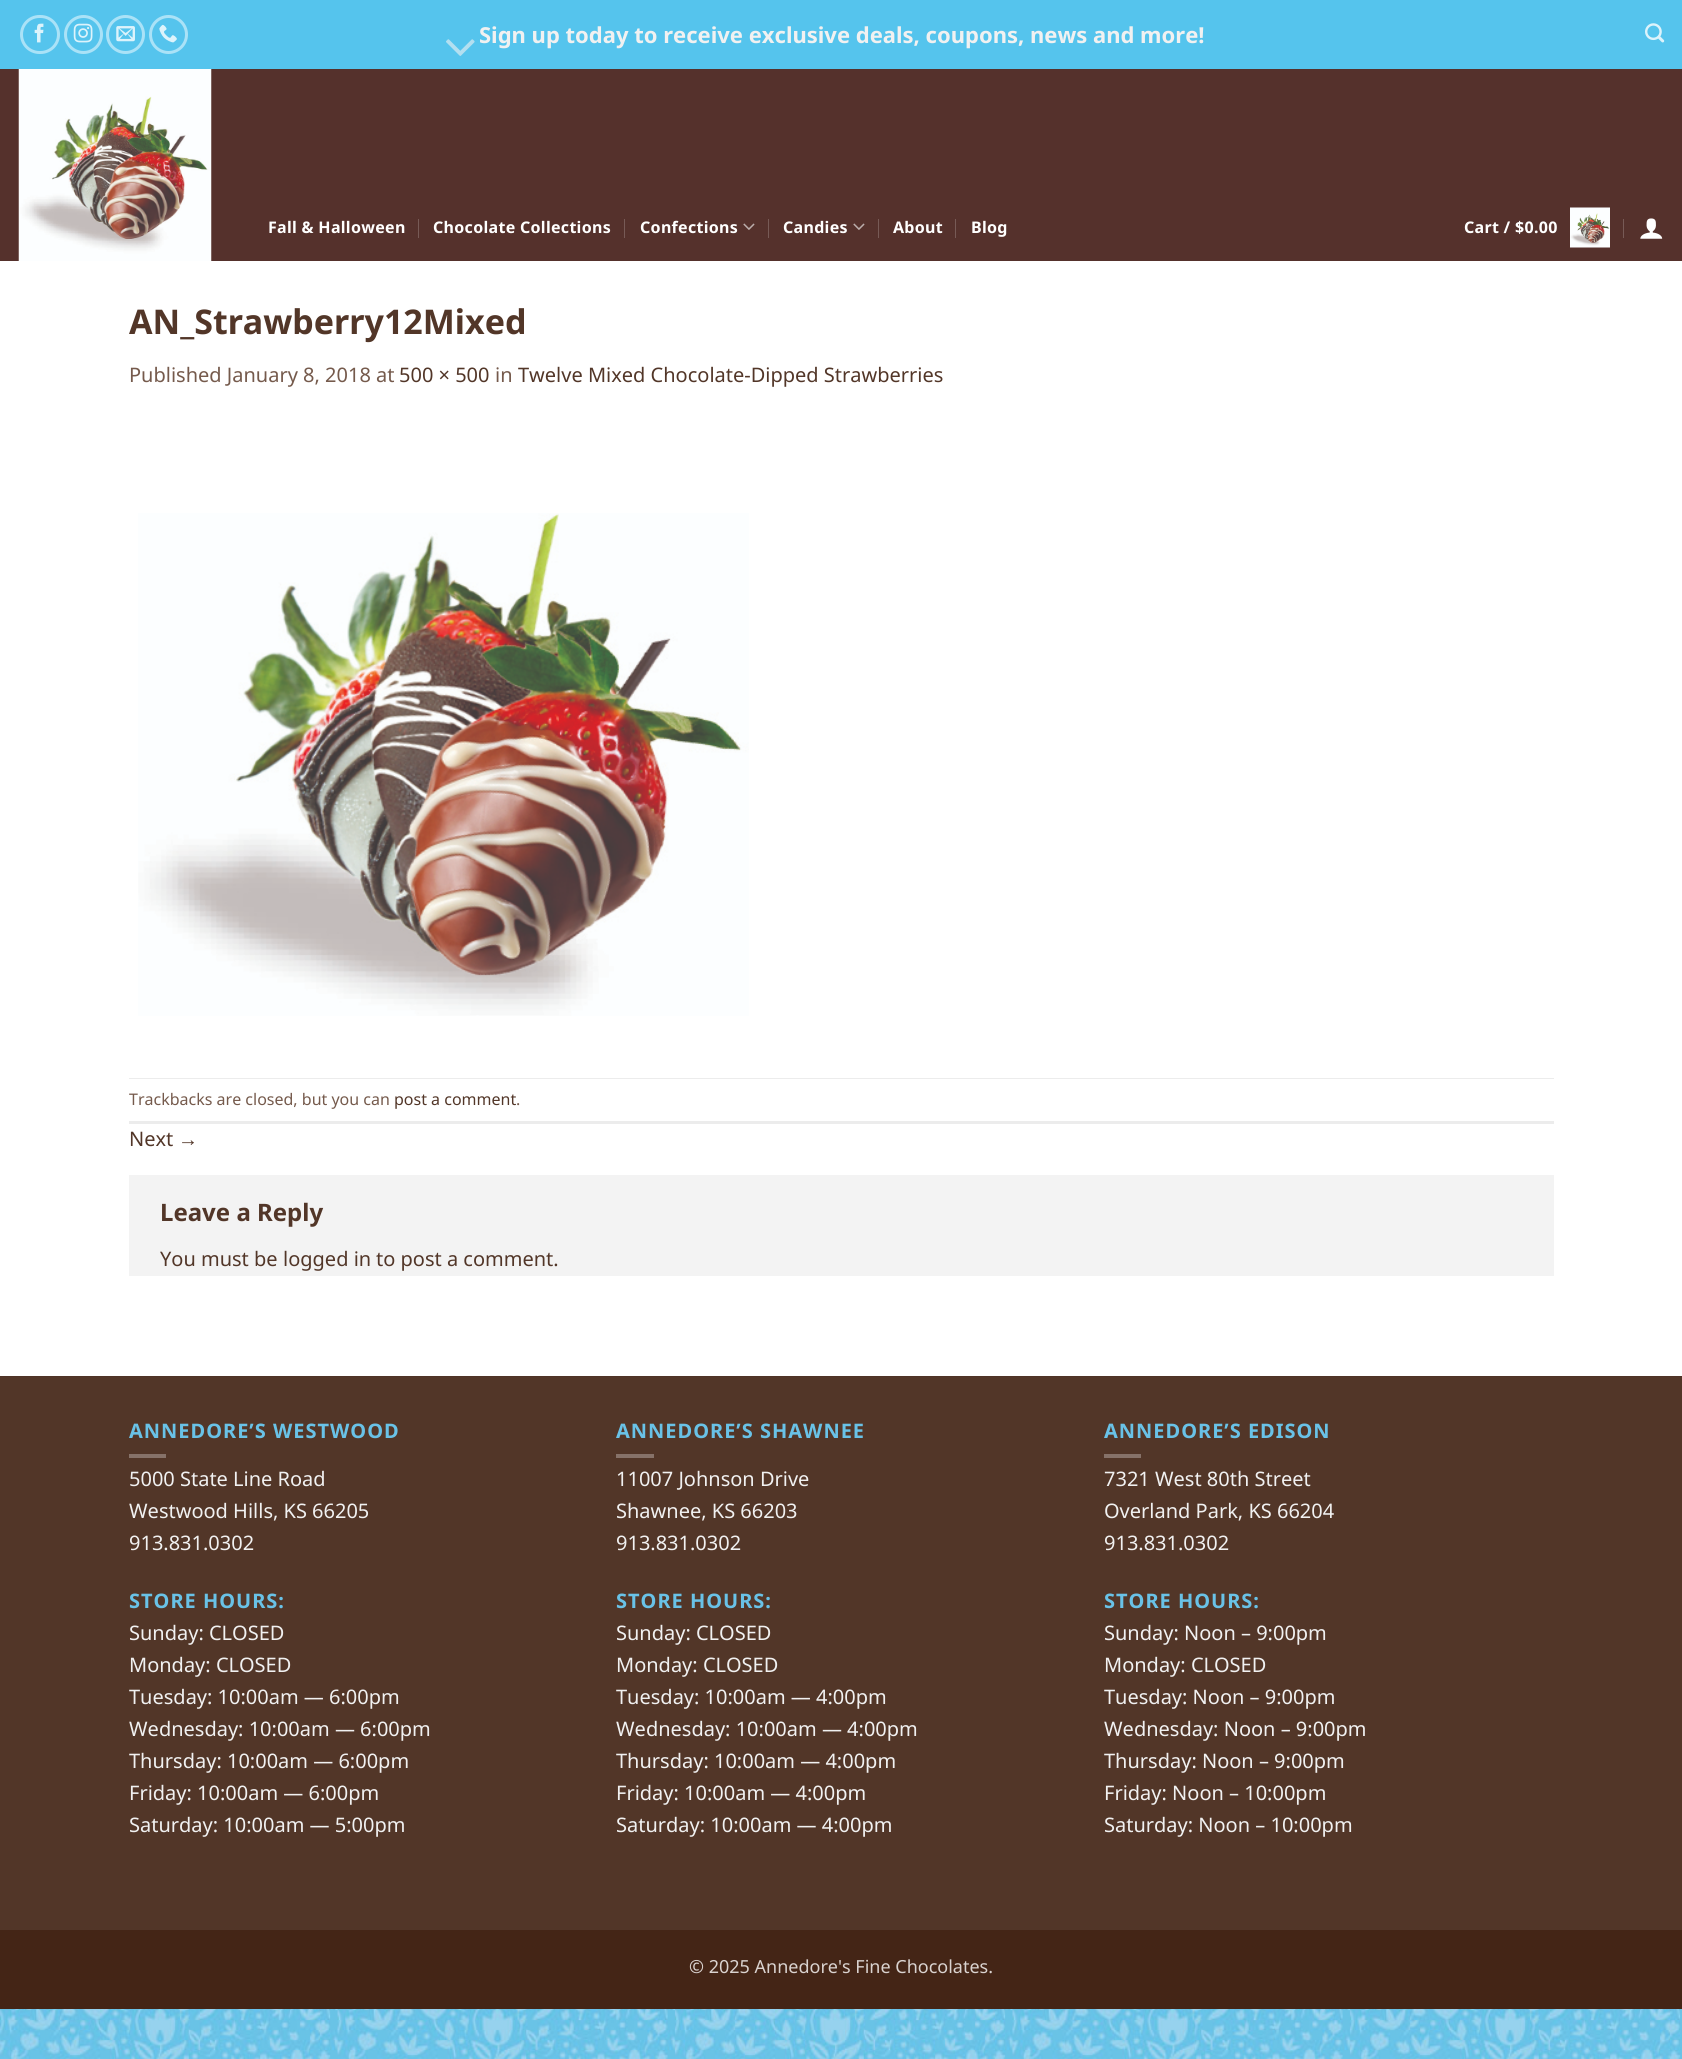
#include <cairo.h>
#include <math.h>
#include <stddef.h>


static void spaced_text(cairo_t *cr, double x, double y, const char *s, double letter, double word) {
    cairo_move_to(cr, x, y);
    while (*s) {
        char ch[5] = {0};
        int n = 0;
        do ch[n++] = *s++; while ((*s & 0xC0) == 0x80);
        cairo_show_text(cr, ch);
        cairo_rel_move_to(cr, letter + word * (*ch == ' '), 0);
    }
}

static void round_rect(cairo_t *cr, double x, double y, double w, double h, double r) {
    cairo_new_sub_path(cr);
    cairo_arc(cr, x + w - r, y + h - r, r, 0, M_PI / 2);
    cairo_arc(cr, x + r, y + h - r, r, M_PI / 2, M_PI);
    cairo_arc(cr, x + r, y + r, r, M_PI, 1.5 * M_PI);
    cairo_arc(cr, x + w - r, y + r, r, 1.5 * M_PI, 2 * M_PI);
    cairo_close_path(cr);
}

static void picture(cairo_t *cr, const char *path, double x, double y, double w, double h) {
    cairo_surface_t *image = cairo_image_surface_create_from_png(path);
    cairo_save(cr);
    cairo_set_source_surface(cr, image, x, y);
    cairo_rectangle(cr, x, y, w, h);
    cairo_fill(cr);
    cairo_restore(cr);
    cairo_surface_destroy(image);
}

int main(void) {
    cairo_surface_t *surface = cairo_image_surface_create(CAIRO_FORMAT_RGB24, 1682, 2059);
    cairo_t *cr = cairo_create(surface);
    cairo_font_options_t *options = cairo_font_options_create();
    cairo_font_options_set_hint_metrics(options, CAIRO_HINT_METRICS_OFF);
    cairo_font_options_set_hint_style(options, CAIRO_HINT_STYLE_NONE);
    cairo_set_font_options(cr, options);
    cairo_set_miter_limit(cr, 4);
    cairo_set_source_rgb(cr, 1, 1, 1);
    cairo_paint(cr);
    picture(cr, "img1.png", 0, 2009, 1682, 50);
    cairo_set_source_rgb(cr, 0.333, 0.769, 0.929);
    cairo_rectangle(cr, 0, 0, 1682, 69);
    cairo_fill(cr);
    round_rect(cr, 21.5, 16.5, 37, 36, 18);
    cairo_set_source_rgb(cr, 0.667, 0.886, 0.965);
    cairo_set_line_width(cr, 3);
    cairo_stroke(cr);
    picture(cr, "img2.png", 34, 23, 10, 20);
    cairo_arc(cr, 83.5, 34.5, 18, 0, 2 * M_PI);
    cairo_stroke(cr);
    picture(cr, "img3.png", 73, 23, 20, 20);
    cairo_arc(cr, 125.5, 34.5, 18, 0, 2 * M_PI);
    cairo_stroke(cr);
    picture(cr, "img4.png", 116, 26, 19, 16);
    cairo_arc(cr, 168.5, 34.5, 18, 0, 2 * M_PI);
    cairo_stroke(cr);
    picture(cr, "img5.png", 159, 24, 18, 19);
    picture(cr, "img6.png", 446, 39, 29, 17);
    cairo_select_font_face(cr, "Noto Sans", CAIRO_FONT_SLANT_NORMAL, CAIRO_FONT_WEIGHT_BOLD);
    cairo_set_font_size(cr, 22);
    cairo_set_source_rgb(cr, 0.945, 0.945, 0.945);
    cairo_move_to(cr, 479, 43);
    cairo_show_text(cr, "Sign up today to receive exclusive deals, coupons, news and more!");
    picture(cr, "img7.png", 1645, 23, 20, 20);
    cairo_set_source_rgb(cr, 0.333, 0.192, 0.173);
    cairo_rectangle(cr, 0, 69, 1682, 192);
    cairo_fill(cr);
    picture(cr, "img8.png", 18, 69, 194, 192);
    cairo_set_font_size(cr, 16);
    cairo_set_source_rgb(cr, 1, 1, 1);
    spaced_text(cr, 268, 233, "Fall & Halloween", 0.3, 0);
    cairo_set_source_rgb(cr, 0.467, 0.353, 0.337);
    cairo_rectangle(cr, 418, 219, 1, 19);
    cairo_fill(cr);
    cairo_set_source_rgb(cr, 1, 1, 1);
    spaced_text(cr, 433, 233, "Chocolate Collections", 0.3, 0);
    cairo_set_source_rgb(cr, 0.467, 0.353, 0.337);
    cairo_rectangle(cr, 624, 219, 1, 19);
    cairo_fill(cr);
    cairo_set_source_rgb(cr, 1, 1, 1);
    spaced_text(cr, 640, 233, "Confections", 0.3, 0);
    picture(cr, "img9.png", 743, 223, 12, 7);
    cairo_set_source_rgb(cr, 0.467, 0.353, 0.337);
    cairo_rectangle(cr, 768, 219, 1, 19);
    cairo_fill(cr);
    cairo_set_source_rgb(cr, 1, 1, 1);
    spaced_text(cr, 783, 233, "Candies", 0.3, 0);
    picture(cr, "img9.png", 853, 223, 12, 7);
    cairo_set_source_rgb(cr, 0.467, 0.353, 0.337);
    cairo_rectangle(cr, 878, 219, 1, 19);
    cairo_fill(cr);
    cairo_set_source_rgb(cr, 1, 1, 1);
    spaced_text(cr, 893, 233, "About", 0.3, 0);
    cairo_set_source_rgb(cr, 0.467, 0.353, 0.337);
    cairo_rectangle(cr, 955, 219, 1, 19);
    cairo_fill(cr);
    cairo_set_source_rgb(cr, 1, 1, 1);
    spaced_text(cr, 971, 233, "Blog", 0.3, 0);
    spaced_text(cr, 1464, 233, "Cart / $0.00", 0.3, 0);
    picture(cr, "img10.png", 1570, 207, 40, 41);
    cairo_set_source_rgb(cr, 0.467, 0.353, 0.337);
    cairo_rectangle(cr, 1623, 219, 1, 19);
    cairo_fill(cr);
    picture(cr, "img11.png", 1640, 218, 23, 21);
    cairo_set_font_size(cr, 34);
    cairo_set_source_rgb(cr, 0.322, 0.212, 0.157);
    cairo_move_to(cr, 129, 334);
    cairo_show_text(cr, "AN_Strawberry12Mixed");
    cairo_select_font_face(cr, "Noto Sans", CAIRO_FONT_SLANT_NORMAL, CAIRO_FONT_WEIGHT_NORMAL);
    cairo_set_font_size(cr, 20);
    cairo_set_source_rgb(cr, 0.459, 0.353, 0.298);
    cairo_move_to(cr, 129, 382);
    cairo_show_text(cr, "Published January 8, 2018 at");
    cairo_set_source_rgb(cr, 0.322, 0.212, 0.157);
    cairo_move_to(cr, 399, 382);
    cairo_show_text(cr, "500 × 500");
    cairo_set_source_rgb(cr, 0.459, 0.353, 0.298);
    cairo_move_to(cr, 495, 382);
    cairo_show_text(cr, "in");
    cairo_set_source_rgb(cr, 0.322, 0.212, 0.157);
    cairo_move_to(cr, 518, 382);
    cairo_show_text(cr, "Twelve Mixed Chocolate-Dipped Strawberries");
    picture(cr, "img12.png", 138, 513, 611, 503);
    cairo_set_source_rgb(cr, 0.925, 0.925, 0.925);
    cairo_rectangle(cr, 129, 1078, 1425, 1);
    cairo_fill(cr);
    cairo_rectangle(cr, 129, 1121, 1425, 3);
    cairo_fill(cr);
    cairo_set_font_size(cr, 16);
    cairo_set_source_rgb(cr, 0.459, 0.353, 0.298);
    cairo_move_to(cr, 129, 1105);
    cairo_show_text(cr, "Trackbacks are closed, but you can");
    cairo_set_source_rgb(cr, 0.322, 0.212, 0.157);
    cairo_move_to(cr, 394, 1105);
    cairo_show_text(cr, "post a comment");
    cairo_set_source_rgb(cr, 0.459, 0.353, 0.298);
    cairo_move_to(cr, 516, 1105);
    cairo_show_text(cr, ".");
    cairo_set_font_size(cr, 20);
    cairo_set_source_rgb(cr, 0.322, 0.212, 0.157);
    cairo_move_to(cr, 129, 1146);
    cairo_show_text(cr, "Next");
    cairo_select_font_face(cr, "Liberation Sans", CAIRO_FONT_SLANT_NORMAL, CAIRO_FONT_WEIGHT_NORMAL);
    cairo_move_to(cr, 178, 1146);
    cairo_show_text(cr, "→");
    cairo_set_source_rgb(cr, 0.953, 0.953, 0.953);
    cairo_rectangle(cr, 129, 1175, 1425, 101);
    cairo_fill(cr);
    cairo_select_font_face(cr, "Noto Sans", CAIRO_FONT_SLANT_NORMAL, CAIRO_FONT_WEIGHT_BOLD);
    cairo_set_font_size(cr, 24);
    cairo_set_source_rgb(cr, 0.322, 0.212, 0.157);
    cairo_move_to(cr, 160, 1221);
    cairo_show_text(cr, "Leave a Reply");
    cairo_select_font_face(cr, "Noto Sans", CAIRO_FONT_SLANT_NORMAL, CAIRO_FONT_WEIGHT_NORMAL);
    cairo_set_font_size(cr, 20);
    cairo_move_to(cr, 160, 1266);
    cairo_show_text(cr, "You must be");
    cairo_move_to(cr, 283, 1266);
    cairo_show_text(cr, "logged in");
    cairo_move_to(cr, 376, 1266);
    cairo_show_text(cr, "to post a comment.");
    cairo_rectangle(cr, 0, 1377, 1682, 553);
    cairo_fill(cr);
    cairo_set_source_rgb(cr, 0.306, 0.2, 0.149);
    cairo_rectangle(cr, 0, 1376, 1682, 1);
    cairo_fill(cr);
    cairo_select_font_face(cr, "Noto Sans", CAIRO_FONT_SLANT_NORMAL, CAIRO_FONT_WEIGHT_BOLD);
    cairo_set_source_rgb(cr, 0.412, 0.761, 0.906);
    spaced_text(cr, 129, 1438, "ANNEDORE’S WESTWOOD", 1, 0);
    cairo_set_source_rgb(cr, 0.525, 0.447, 0.412);
    cairo_rectangle(cr, 129, 1454, 37, 4);
    cairo_fill(cr);
    cairo_select_font_face(cr, "Noto Sans", CAIRO_FONT_SLANT_NORMAL, CAIRO_FONT_WEIGHT_NORMAL);
    cairo_set_source_rgb(cr, 0.945, 0.945, 0.945);
    cairo_move_to(cr, 129, 1486);
    cairo_show_text(cr, "5000 State Line Road");
    cairo_move_to(cr, 129, 1518);
    cairo_show_text(cr, "Westwood Hills, KS 66205");
    cairo_move_to(cr, 129, 1550);
    cairo_show_text(cr, "913.831.0302");
    cairo_select_font_face(cr, "Noto Sans", CAIRO_FONT_SLANT_NORMAL, CAIRO_FONT_WEIGHT_BOLD);
    cairo_set_source_rgb(cr, 0.412, 0.761, 0.906);
    spaced_text(cr, 129, 1608, "STORE HOURS:", 1, 0);
    cairo_select_font_face(cr, "Noto Sans", CAIRO_FONT_SLANT_NORMAL, CAIRO_FONT_WEIGHT_NORMAL);
    cairo_set_source_rgb(cr, 0.945, 0.945, 0.945);
    cairo_move_to(cr, 129, 1640);
    cairo_show_text(cr, "Sunday: CLOSED");
    cairo_move_to(cr, 129, 1672);
    cairo_show_text(cr, "Monday: CLOSED");
    cairo_move_to(cr, 129, 1704);
    cairo_show_text(cr, "Tuesday: 10:00am — 6:00pm");
    cairo_move_to(cr, 129, 1736);
    cairo_show_text(cr, "Wednesday: 10:00am — 6:00pm");
    cairo_move_to(cr, 129, 1768);
    cairo_show_text(cr, "Thursday: 10:00am — 6:00pm");
    cairo_move_to(cr, 129, 1800);
    cairo_show_text(cr, "Friday: 10:00am — 6:00pm");
    cairo_move_to(cr, 129, 1832);
    cairo_show_text(cr, "Saturday: 10:00am — 5:00pm");
    cairo_select_font_face(cr, "Noto Sans", CAIRO_FONT_SLANT_NORMAL, CAIRO_FONT_WEIGHT_BOLD);
    cairo_set_source_rgb(cr, 0.412, 0.761, 0.906);
    spaced_text(cr, 616, 1438, "ANNEDORE’S SHAWNEE", 1, 0);
    cairo_set_source_rgb(cr, 0.525, 0.447, 0.412);
    cairo_rectangle(cr, 616, 1454, 38, 4);
    cairo_fill(cr);
    cairo_select_font_face(cr, "Noto Sans", CAIRO_FONT_SLANT_NORMAL, CAIRO_FONT_WEIGHT_NORMAL);
    cairo_set_source_rgb(cr, 0.945, 0.945, 0.945);
    cairo_move_to(cr, 616, 1486);
    cairo_show_text(cr, "11007 Johnson Drive");
    cairo_move_to(cr, 616, 1518);
    cairo_show_text(cr, "Shawnee, KS 66203");
    cairo_move_to(cr, 616, 1550);
    cairo_show_text(cr, "913.831.0302");
    cairo_select_font_face(cr, "Noto Sans", CAIRO_FONT_SLANT_NORMAL, CAIRO_FONT_WEIGHT_BOLD);
    cairo_set_source_rgb(cr, 0.412, 0.761, 0.906);
    spaced_text(cr, 616, 1608, "STORE HOURS:", 1, 0);
    cairo_select_font_face(cr, "Noto Sans", CAIRO_FONT_SLANT_NORMAL, CAIRO_FONT_WEIGHT_NORMAL);
    cairo_set_source_rgb(cr, 0.945, 0.945, 0.945);
    cairo_move_to(cr, 616, 1640);
    cairo_show_text(cr, "Sunday: CLOSED");
    cairo_move_to(cr, 616, 1672);
    cairo_show_text(cr, "Monday: CLOSED");
    cairo_move_to(cr, 616, 1704);
    cairo_show_text(cr, "Tuesday: 10:00am — 4:00pm");
    cairo_move_to(cr, 616, 1736);
    cairo_show_text(cr, "Wednesday: 10:00am — 4:00pm");
    cairo_move_to(cr, 616, 1768);
    cairo_show_text(cr, "Thursday: 10:00am — 4:00pm");
    cairo_move_to(cr, 616, 1800);
    cairo_show_text(cr, "Friday: 10:00am — 4:00pm");
    cairo_move_to(cr, 616, 1832);
    cairo_show_text(cr, "Saturday: 10:00am — 4:00pm");
    cairo_select_font_face(cr, "Noto Sans", CAIRO_FONT_SLANT_NORMAL, CAIRO_FONT_WEIGHT_BOLD);
    cairo_set_source_rgb(cr, 0.412, 0.761, 0.906);
    spaced_text(cr, 1104, 1438, "ANNEDORE’S EDISON", 1, 0);
    cairo_set_source_rgb(cr, 0.525, 0.447, 0.412);
    cairo_rectangle(cr, 1104, 1454, 37, 4);
    cairo_fill(cr);
    cairo_select_font_face(cr, "Noto Sans", CAIRO_FONT_SLANT_NORMAL, CAIRO_FONT_WEIGHT_NORMAL);
    cairo_set_source_rgb(cr, 0.945, 0.945, 0.945);
    cairo_move_to(cr, 1104, 1486);
    cairo_show_text(cr, "7321 West 80th Street");
    cairo_move_to(cr, 1104, 1518);
    cairo_show_text(cr, "Overland Park, KS 66204");
    cairo_move_to(cr, 1104, 1550);
    cairo_show_text(cr, "913.831.0302");
    cairo_select_font_face(cr, "Noto Sans", CAIRO_FONT_SLANT_NORMAL, CAIRO_FONT_WEIGHT_BOLD);
    cairo_set_source_rgb(cr, 0.412, 0.761, 0.906);
    spaced_text(cr, 1104, 1608, "STORE HOURS:", 1, 0);
    cairo_select_font_face(cr, "Noto Sans", CAIRO_FONT_SLANT_NORMAL, CAIRO_FONT_WEIGHT_NORMAL);
    cairo_set_source_rgb(cr, 0.945, 0.945, 0.945);
    cairo_move_to(cr, 1104, 1640);
    cairo_show_text(cr, "Sunday: Noon – 9:00pm");
    cairo_move_to(cr, 1104, 1672);
    cairo_show_text(cr, "Monday: CLOSED");
    cairo_move_to(cr, 1104, 1704);
    cairo_show_text(cr, "Tuesday: Noon – 9:00pm");
    cairo_move_to(cr, 1104, 1736);
    cairo_show_text(cr, "Wednesday: Noon – 9:00pm");
    cairo_move_to(cr, 1104, 1768);
    cairo_show_text(cr, "Thursday: Noon – 9:00pm");
    cairo_move_to(cr, 1104, 1800);
    cairo_show_text(cr, "Friday: Noon – 10:00pm");
    cairo_move_to(cr, 1104, 1832);
    cairo_show_text(cr, "Saturday: Noon – 10:00pm");
    cairo_set_source_rgb(cr, 0.267, 0.145, 0.086);
    cairo_rectangle(cr, 0, 1930, 1682, 79);
    cairo_fill(cr);
    cairo_set_font_size(cr, 18);
    cairo_set_source_rgb(cr, 0.855, 0.827, 0.816);
    cairo_move_to(cr, 689, 1973);
    cairo_show_text(cr, "© 2025 Annedore's Fine Chocolates.");
    cairo_surface_write_to_png(surface, "page.png");
    cairo_font_options_destroy(options);
    cairo_destroy(cr);
    cairo_surface_destroy(surface);
    return 0;
}
